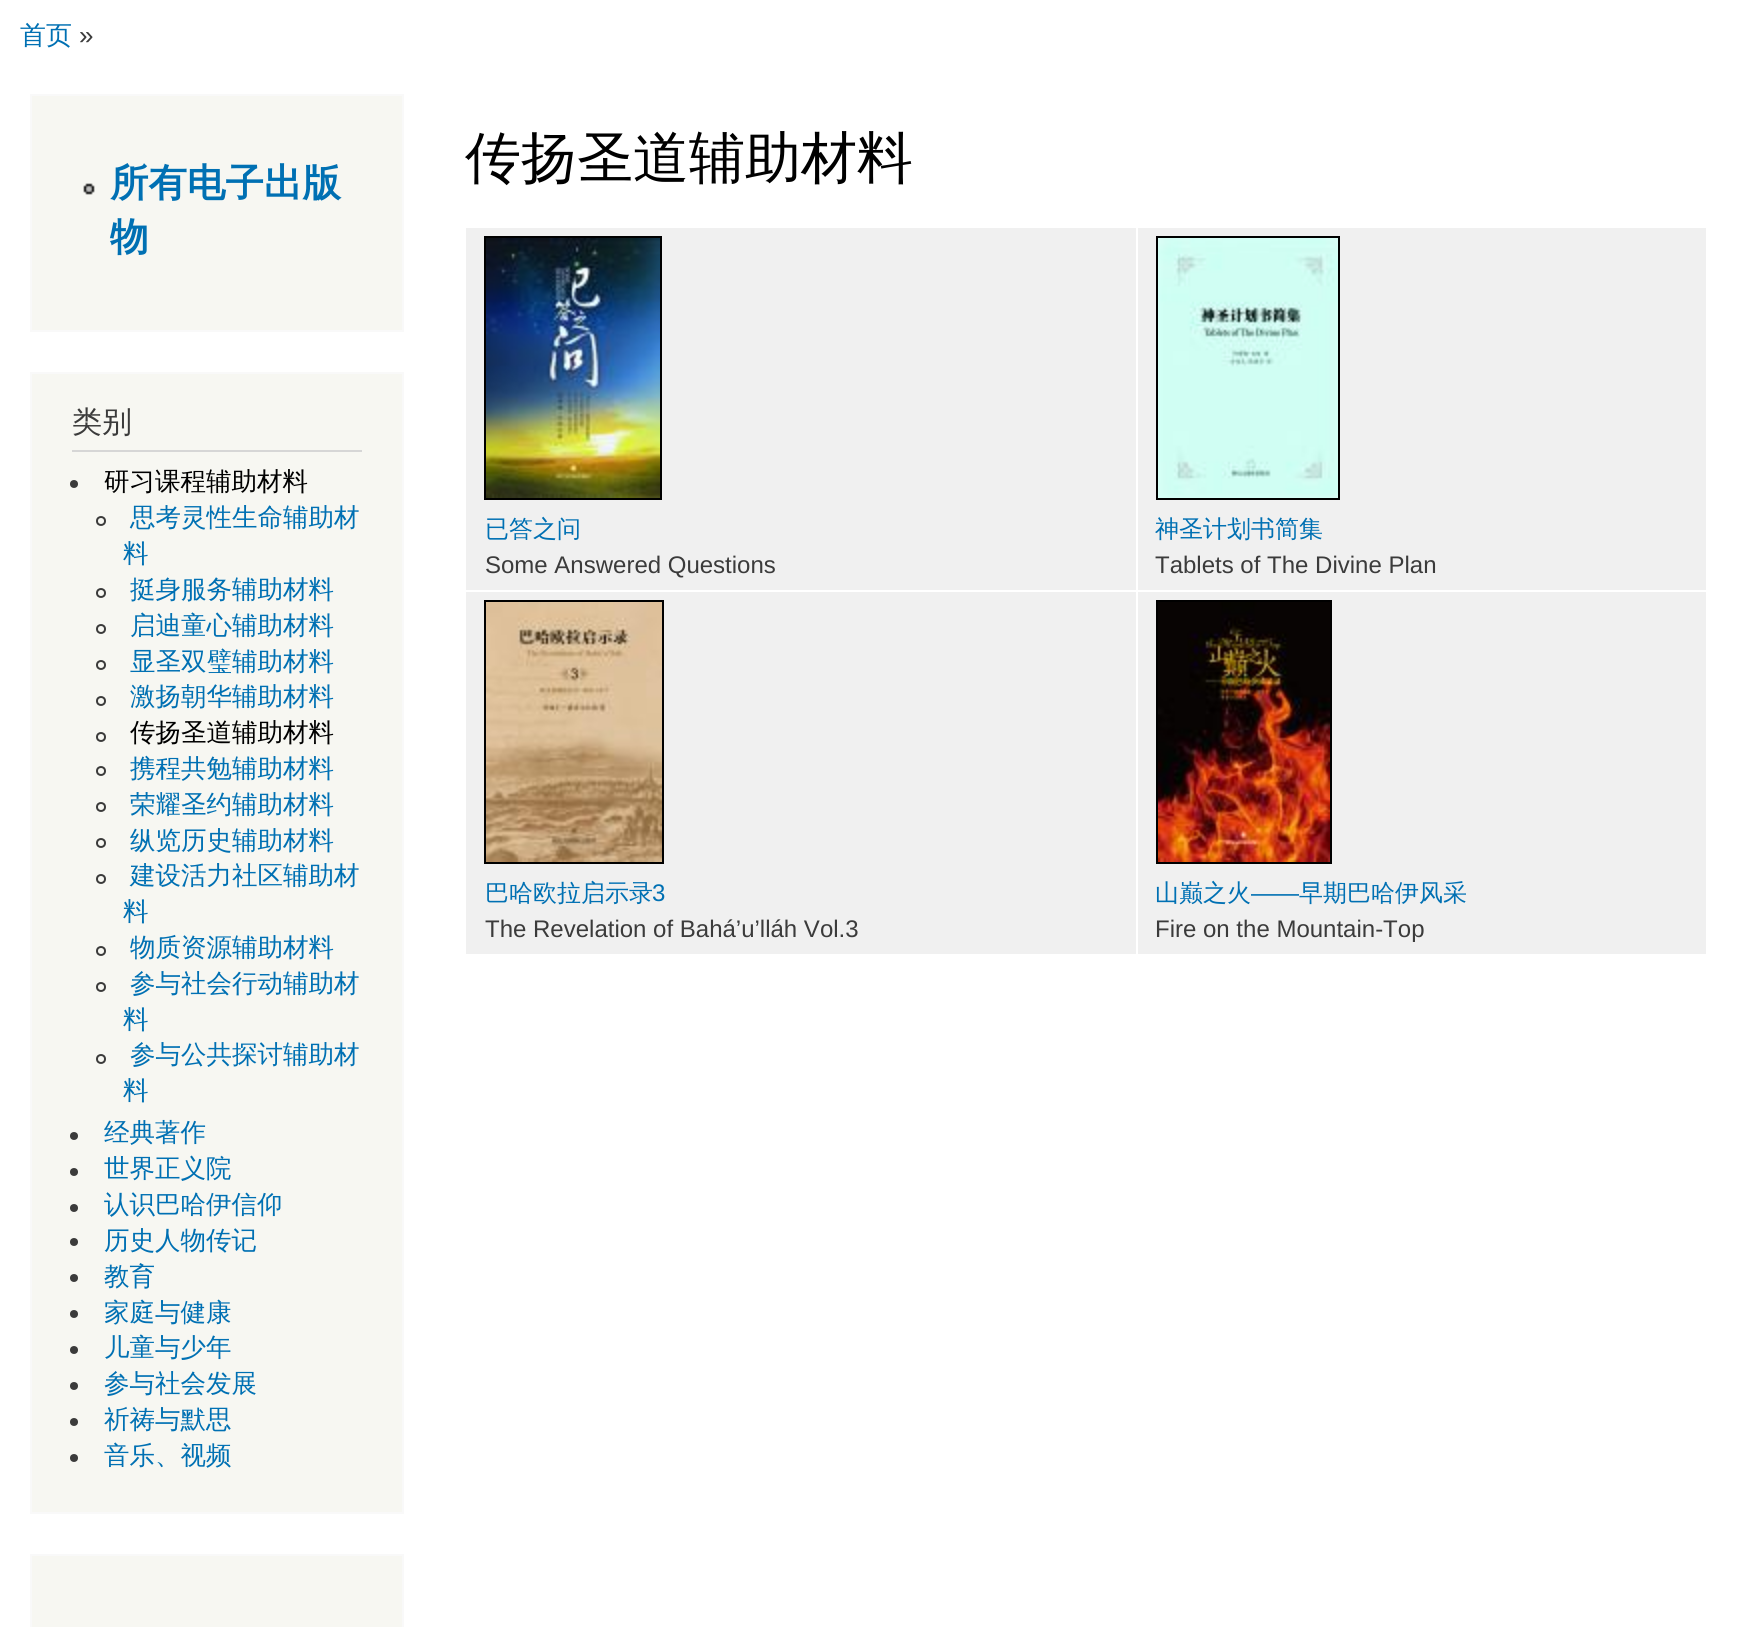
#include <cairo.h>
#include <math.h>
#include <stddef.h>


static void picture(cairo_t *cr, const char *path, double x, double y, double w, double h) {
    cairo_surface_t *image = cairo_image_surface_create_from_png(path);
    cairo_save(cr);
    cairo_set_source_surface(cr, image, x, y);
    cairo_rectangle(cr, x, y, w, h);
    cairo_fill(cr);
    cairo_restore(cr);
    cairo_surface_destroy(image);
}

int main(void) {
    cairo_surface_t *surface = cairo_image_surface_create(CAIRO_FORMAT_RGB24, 1737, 1627);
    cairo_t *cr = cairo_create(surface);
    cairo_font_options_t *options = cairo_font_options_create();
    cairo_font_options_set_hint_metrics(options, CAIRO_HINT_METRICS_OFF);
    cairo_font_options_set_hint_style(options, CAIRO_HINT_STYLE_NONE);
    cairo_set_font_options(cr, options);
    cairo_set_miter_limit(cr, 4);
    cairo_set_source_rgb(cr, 1, 1, 1);
    cairo_paint(cr);
    cairo_select_font_face(cr, "WenQuanYi Zen Hei Medium", CAIRO_FONT_SLANT_NORMAL, CAIRO_FONT_WEIGHT_NORMAL);
    cairo_set_font_size(cr, 26);
    cairo_set_source_rgb(cr, 0, 0.439, 0.702);
    cairo_move_to(cr, 20, 44);
    cairo_show_text(cr, "首页");
    cairo_select_font_face(cr, "Liberation Sans", CAIRO_FONT_SLANT_NORMAL, CAIRO_FONT_WEIGHT_NORMAL);
    cairo_set_source_rgb(cr, 0.231, 0.231, 0.231);
    cairo_move_to(cr, 79, 44);
    cairo_show_text(cr, "»");
    cairo_set_source_rgb(cr, 0.965, 0.965, 0.949);
    cairo_rectangle(cr, 31, 95, 372, 236);
    cairo_fill_preserve(cr);
    cairo_set_source_rgb(cr, 0.976, 0.976, 0.976);
    cairo_stroke(cr);
    picture(cr, "img1.png", 83, 183, 12, 12);
    cairo_select_font_face(cr, "WenQuanYi Zen Hei", CAIRO_FONT_SLANT_NORMAL, CAIRO_FONT_WEIGHT_BOLD);
    cairo_set_font_size(cr, 38.5);
    cairo_set_source_rgb(cr, 0, 0.439, 0.702);
    cairo_move_to(cr, 110, 196);
    cairo_show_text(cr, "所有电子出版");
    cairo_move_to(cr, 110, 250);
    cairo_show_text(cr, "物");
    cairo_set_source_rgb(cr, 0.965, 0.965, 0.949);
    cairo_rectangle(cr, 31, 373, 372, 1140);
    cairo_fill_preserve(cr);
    cairo_set_source_rgb(cr, 0.976, 0.976, 0.976);
    cairo_stroke(cr);
    cairo_set_source_rgb(cr, 0.839, 0.839, 0.839);
    cairo_rectangle(cr, 72, 450, 290, 2);
    cairo_fill(cr);
    cairo_select_font_face(cr, "WenQuanYi Zen Hei Medium", CAIRO_FONT_SLANT_NORMAL, CAIRO_FONT_WEIGHT_NORMAL);
    cairo_set_font_size(cr, 30);
    cairo_set_source_rgb(cr, 0.231, 0.231, 0.231);
    cairo_move_to(cr, 72, 432);
    cairo_show_text(cr, "类别");
    cairo_new_path(cr);
    cairo_arc(cr, 74, 484, 4, 0, 2 * M_PI);
    cairo_fill(cr);
    cairo_set_font_size(cr, 25.5);
    cairo_set_source_rgb(cr, 0, 0, 0);
    cairo_move_to(cr, 104, 490);
    cairo_show_text(cr, "研习课程辅助材料");
    cairo_new_path(cr);
    cairo_arc(cr, 101, 521, 4, 0, 2 * M_PI);
    cairo_set_source_rgb(cr, 0.231, 0.231, 0.231);
    cairo_stroke(cr);
    cairo_set_source_rgb(cr, 0, 0.439, 0.702);
    cairo_move_to(cr, 130, 526);
    cairo_show_text(cr, "思考灵性生命辅助材");
    cairo_move_to(cr, 123, 562);
    cairo_show_text(cr, "料");
    cairo_new_path(cr);
    cairo_arc(cr, 101, 593, 4, 0, 2 * M_PI);
    cairo_set_source_rgb(cr, 0.231, 0.231, 0.231);
    cairo_stroke(cr);
    cairo_set_source_rgb(cr, 0, 0.439, 0.702);
    cairo_move_to(cr, 130, 598);
    cairo_show_text(cr, "挺身服务辅助材料");
    cairo_new_path(cr);
    cairo_arc(cr, 101, 629, 4, 0, 2 * M_PI);
    cairo_set_source_rgb(cr, 0.231, 0.231, 0.231);
    cairo_stroke(cr);
    cairo_set_source_rgb(cr, 0, 0.439, 0.702);
    cairo_move_to(cr, 130, 634);
    cairo_show_text(cr, "启迪童心辅助材料");
    cairo_new_path(cr);
    cairo_arc(cr, 101, 665, 4, 0, 2 * M_PI);
    cairo_set_source_rgb(cr, 0.231, 0.231, 0.231);
    cairo_stroke(cr);
    cairo_set_source_rgb(cr, 0, 0.439, 0.702);
    cairo_move_to(cr, 130, 670);
    cairo_show_text(cr, "显圣双璧辅助材料");
    cairo_new_path(cr);
    cairo_arc(cr, 101, 701, 4, 0, 2 * M_PI);
    cairo_set_source_rgb(cr, 0.231, 0.231, 0.231);
    cairo_stroke(cr);
    cairo_set_source_rgb(cr, 0, 0.439, 0.702);
    cairo_move_to(cr, 130, 705);
    cairo_show_text(cr, "激扬朝华辅助材料");
    cairo_new_path(cr);
    cairo_arc(cr, 101, 737, 4, 0, 2 * M_PI);
    cairo_set_source_rgb(cr, 0.231, 0.231, 0.231);
    cairo_stroke(cr);
    cairo_set_source_rgb(cr, 0, 0, 0);
    cairo_move_to(cr, 130, 741);
    cairo_show_text(cr, "传扬圣道辅助材料");
    cairo_new_path(cr);
    cairo_arc(cr, 101, 771, 4, 0, 2 * M_PI);
    cairo_set_source_rgb(cr, 0.231, 0.231, 0.231);
    cairo_stroke(cr);
    cairo_set_source_rgb(cr, 0, 0.439, 0.702);
    cairo_move_to(cr, 130, 777);
    cairo_show_text(cr, "携程共勉辅助材料");
    cairo_new_path(cr);
    cairo_arc(cr, 101, 807, 4, 0, 2 * M_PI);
    cairo_set_source_rgb(cr, 0.231, 0.231, 0.231);
    cairo_stroke(cr);
    cairo_set_source_rgb(cr, 0, 0.439, 0.702);
    cairo_move_to(cr, 130, 813);
    cairo_show_text(cr, "荣耀圣约辅助材料");
    cairo_new_path(cr);
    cairo_arc(cr, 101, 843, 4, 0, 2 * M_PI);
    cairo_set_source_rgb(cr, 0.231, 0.231, 0.231);
    cairo_stroke(cr);
    cairo_set_source_rgb(cr, 0, 0.439, 0.702);
    cairo_move_to(cr, 130, 849);
    cairo_show_text(cr, "纵览历史辅助材料");
    cairo_new_path(cr);
    cairo_arc(cr, 101, 879, 4, 0, 2 * M_PI);
    cairo_set_source_rgb(cr, 0.231, 0.231, 0.231);
    cairo_stroke(cr);
    cairo_set_source_rgb(cr, 0, 0.439, 0.702);
    cairo_move_to(cr, 130, 884);
    cairo_show_text(cr, "建设活力社区辅助材");
    cairo_move_to(cr, 123, 920);
    cairo_show_text(cr, "料");
    cairo_new_path(cr);
    cairo_arc(cr, 101, 951, 4, 0, 2 * M_PI);
    cairo_set_source_rgb(cr, 0.231, 0.231, 0.231);
    cairo_stroke(cr);
    cairo_set_source_rgb(cr, 0, 0.439, 0.702);
    cairo_move_to(cr, 130, 956);
    cairo_show_text(cr, "物质资源辅助材料");
    cairo_new_path(cr);
    cairo_arc(cr, 101, 987, 4, 0, 2 * M_PI);
    cairo_set_source_rgb(cr, 0.231, 0.231, 0.231);
    cairo_stroke(cr);
    cairo_set_source_rgb(cr, 0, 0.439, 0.702);
    cairo_move_to(cr, 130, 992);
    cairo_show_text(cr, "参与社会行动辅助材");
    cairo_move_to(cr, 123, 1028);
    cairo_show_text(cr, "料");
    cairo_new_path(cr);
    cairo_arc(cr, 101, 1059, 4, 0, 2 * M_PI);
    cairo_set_source_rgb(cr, 0.231, 0.231, 0.231);
    cairo_stroke(cr);
    cairo_set_source_rgb(cr, 0, 0.439, 0.702);
    cairo_move_to(cr, 130, 1063);
    cairo_show_text(cr, "参与公共探讨辅助材");
    cairo_move_to(cr, 123, 1099);
    cairo_show_text(cr, "料");
    cairo_set_source_rgb(cr, 0.231, 0.231, 0.231);
    cairo_new_path(cr);
    cairo_arc(cr, 74, 1136, 4, 0, 2 * M_PI);
    cairo_fill(cr);
    cairo_set_source_rgb(cr, 0, 0.439, 0.702);
    cairo_move_to(cr, 104, 1141);
    cairo_show_text(cr, "经典著作");
    cairo_set_source_rgb(cr, 0.231, 0.231, 0.231);
    cairo_new_path(cr);
    cairo_arc(cr, 74, 1172, 4, 0, 2 * M_PI);
    cairo_fill(cr);
    cairo_set_source_rgb(cr, 0, 0.439, 0.702);
    cairo_move_to(cr, 104, 1177);
    cairo_show_text(cr, "世界正义院");
    cairo_set_source_rgb(cr, 0.231, 0.231, 0.231);
    cairo_new_path(cr);
    cairo_arc(cr, 74, 1208, 4, 0, 2 * M_PI);
    cairo_fill(cr);
    cairo_set_source_rgb(cr, 0, 0.439, 0.702);
    cairo_move_to(cr, 104, 1213);
    cairo_show_text(cr, "认识巴哈伊信仰");
    cairo_set_source_rgb(cr, 0.231, 0.231, 0.231);
    cairo_new_path(cr);
    cairo_arc(cr, 74, 1242, 4, 0, 2 * M_PI);
    cairo_fill(cr);
    cairo_set_source_rgb(cr, 0, 0.439, 0.702);
    cairo_move_to(cr, 104, 1249);
    cairo_show_text(cr, "历史人物传记");
    cairo_set_source_rgb(cr, 0.231, 0.231, 0.231);
    cairo_new_path(cr);
    cairo_arc(cr, 74, 1278, 4, 0, 2 * M_PI);
    cairo_fill(cr);
    cairo_set_source_rgb(cr, 0, 0.439, 0.702);
    cairo_move_to(cr, 104, 1285);
    cairo_show_text(cr, "教育");
    cairo_set_source_rgb(cr, 0.231, 0.231, 0.231);
    cairo_new_path(cr);
    cairo_arc(cr, 74, 1314, 4, 0, 2 * M_PI);
    cairo_fill(cr);
    cairo_set_source_rgb(cr, 0, 0.439, 0.702);
    cairo_move_to(cr, 104, 1321);
    cairo_show_text(cr, "家庭与健康");
    cairo_set_source_rgb(cr, 0.231, 0.231, 0.231);
    cairo_new_path(cr);
    cairo_arc(cr, 74, 1350, 4, 0, 2 * M_PI);
    cairo_fill(cr);
    cairo_set_source_rgb(cr, 0, 0.439, 0.702);
    cairo_move_to(cr, 104, 1356);
    cairo_show_text(cr, "儿童与少年");
    cairo_set_source_rgb(cr, 0.231, 0.231, 0.231);
    cairo_new_path(cr);
    cairo_arc(cr, 74, 1386, 4, 0, 2 * M_PI);
    cairo_fill(cr);
    cairo_set_source_rgb(cr, 0, 0.439, 0.702);
    cairo_move_to(cr, 104, 1392);
    cairo_show_text(cr, "参与社会发展");
    cairo_set_source_rgb(cr, 0.231, 0.231, 0.231);
    cairo_new_path(cr);
    cairo_arc(cr, 74, 1422, 4, 0, 2 * M_PI);
    cairo_fill(cr);
    cairo_set_source_rgb(cr, 0, 0.439, 0.702);
    cairo_move_to(cr, 104, 1428);
    cairo_show_text(cr, "祈祷与默思");
    cairo_set_source_rgb(cr, 0.231, 0.231, 0.231);
    cairo_new_path(cr);
    cairo_arc(cr, 74, 1458, 4, 0, 2 * M_PI);
    cairo_fill(cr);
    cairo_set_source_rgb(cr, 0, 0.439, 0.702);
    cairo_move_to(cr, 104, 1464);
    cairo_show_text(cr, "音乐、视频");
    cairo_set_source_rgb(cr, 0.965, 0.965, 0.949);
    cairo_rectangle(cr, 31, 1555, 372, 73);
    cairo_fill_preserve(cr);
    cairo_set_source_rgb(cr, 0.976, 0.976, 0.976);
    cairo_stroke(cr);
    cairo_set_font_size(cr, 56);
    cairo_set_source_rgb(cr, 0, 0, 0);
    cairo_move_to(cr, 465, 177);
    cairo_show_text(cr, "传扬圣道辅助材料");
    cairo_set_source_rgb(cr, 0.941, 0.941, 0.941);
    cairo_rectangle(cr, 466, 228, 1240, 362);
    cairo_fill(cr);
    cairo_rectangle(cr, 485, 237, 176, 262);
    cairo_set_source_rgb(cr, 0, 0, 0);
    cairo_stroke(cr);
    picture(cr, "img2.png", 486, 238, 174, 260);
    cairo_set_font_size(cr, 24);
    cairo_set_source_rgb(cr, 0, 0.439, 0.702);
    cairo_move_to(cr, 485, 537);
    cairo_show_text(cr, "已答之问");
    cairo_select_font_face(cr, "Liberation Sans", CAIRO_FONT_SLANT_NORMAL, CAIRO_FONT_WEIGHT_NORMAL);
    cairo_set_source_rgb(cr, 0.231, 0.231, 0.231);
    cairo_move_to(cr, 485, 573);
    cairo_show_text(cr, "Some Answered Questions");
    cairo_rectangle(cr, 1157, 237, 182, 262);
    cairo_set_source_rgb(cr, 0, 0, 0);
    cairo_stroke(cr);
    picture(cr, "img3.png", 1158, 238, 180, 260);
    cairo_select_font_face(cr, "WenQuanYi Zen Hei Medium", CAIRO_FONT_SLANT_NORMAL, CAIRO_FONT_WEIGHT_NORMAL);
    cairo_set_source_rgb(cr, 0, 0.439, 0.702);
    cairo_move_to(cr, 1155, 537);
    cairo_show_text(cr, "神圣计划书简集");
    cairo_select_font_face(cr, "Liberation Sans", CAIRO_FONT_SLANT_NORMAL, CAIRO_FONT_WEIGHT_NORMAL);
    cairo_set_source_rgb(cr, 0.231, 0.231, 0.231);
    cairo_move_to(cr, 1155, 573);
    cairo_show_text(cr, "Tablets of The Divine Plan");
    cairo_set_source_rgb(cr, 0.941, 0.941, 0.941);
    cairo_rectangle(cr, 466, 592, 1240, 362);
    cairo_fill(cr);
    cairo_rectangle(cr, 485, 601, 178, 262);
    cairo_set_source_rgb(cr, 0, 0, 0);
    cairo_stroke(cr);
    picture(cr, "img4.png", 486, 602, 176, 260);
    cairo_select_font_face(cr, "WenQuanYi Zen Hei Medium", CAIRO_FONT_SLANT_NORMAL, CAIRO_FONT_WEIGHT_NORMAL);
    cairo_set_source_rgb(cr, 0, 0.439, 0.702);
    cairo_move_to(cr, 485, 901);
    cairo_show_text(cr, "巴哈欧拉启示录");
    cairo_select_font_face(cr, "Liberation Sans", CAIRO_FONT_SLANT_NORMAL, CAIRO_FONT_WEIGHT_NORMAL);
    cairo_move_to(cr, 652, 901);
    cairo_show_text(cr, "3");
    cairo_set_source_rgb(cr, 0.231, 0.231, 0.231);
    cairo_move_to(cr, 485, 937);
    cairo_show_text(cr, "The Revelation of Bahá’u’lláh Vol.3");
    cairo_set_source_rgb(cr, 1, 1, 1);
    cairo_rectangle(cr, 1136, 226, 2, 730);
    cairo_fill(cr);
    cairo_rectangle(cr, 1157, 601, 174, 262);
    cairo_set_source_rgb(cr, 0, 0, 0);
    cairo_stroke(cr);
    picture(cr, "img5.png", 1158, 602, 172, 260);
    cairo_select_font_face(cr, "WenQuanYi Zen Hei Medium", CAIRO_FONT_SLANT_NORMAL, CAIRO_FONT_WEIGHT_NORMAL);
    cairo_set_source_rgb(cr, 0, 0.439, 0.702);
    cairo_move_to(cr, 1155, 901);
    cairo_show_text(cr, "山巅之火");
    cairo_select_font_face(cr, "Liberation Sans", CAIRO_FONT_SLANT_NORMAL, CAIRO_FONT_WEIGHT_NORMAL);
    cairo_move_to(cr, 1251, 901);
    cairo_show_text(cr, "——");
    cairo_select_font_face(cr, "WenQuanYi Zen Hei Medium", CAIRO_FONT_SLANT_NORMAL, CAIRO_FONT_WEIGHT_NORMAL);
    cairo_move_to(cr, 1299, 901);
    cairo_show_text(cr, "早期巴哈伊风采");
    cairo_select_font_face(cr, "Liberation Sans", CAIRO_FONT_SLANT_NORMAL, CAIRO_FONT_WEIGHT_NORMAL);
    cairo_set_source_rgb(cr, 0.231, 0.231, 0.231);
    cairo_move_to(cr, 1155, 937);
    cairo_show_text(cr, "Fire on the Mountain-Top");
    cairo_surface_write_to_png(surface, "page.png");
    cairo_font_options_destroy(options);
    cairo_destroy(cr);
    cairo_surface_destroy(surface);
    return 0;
}
